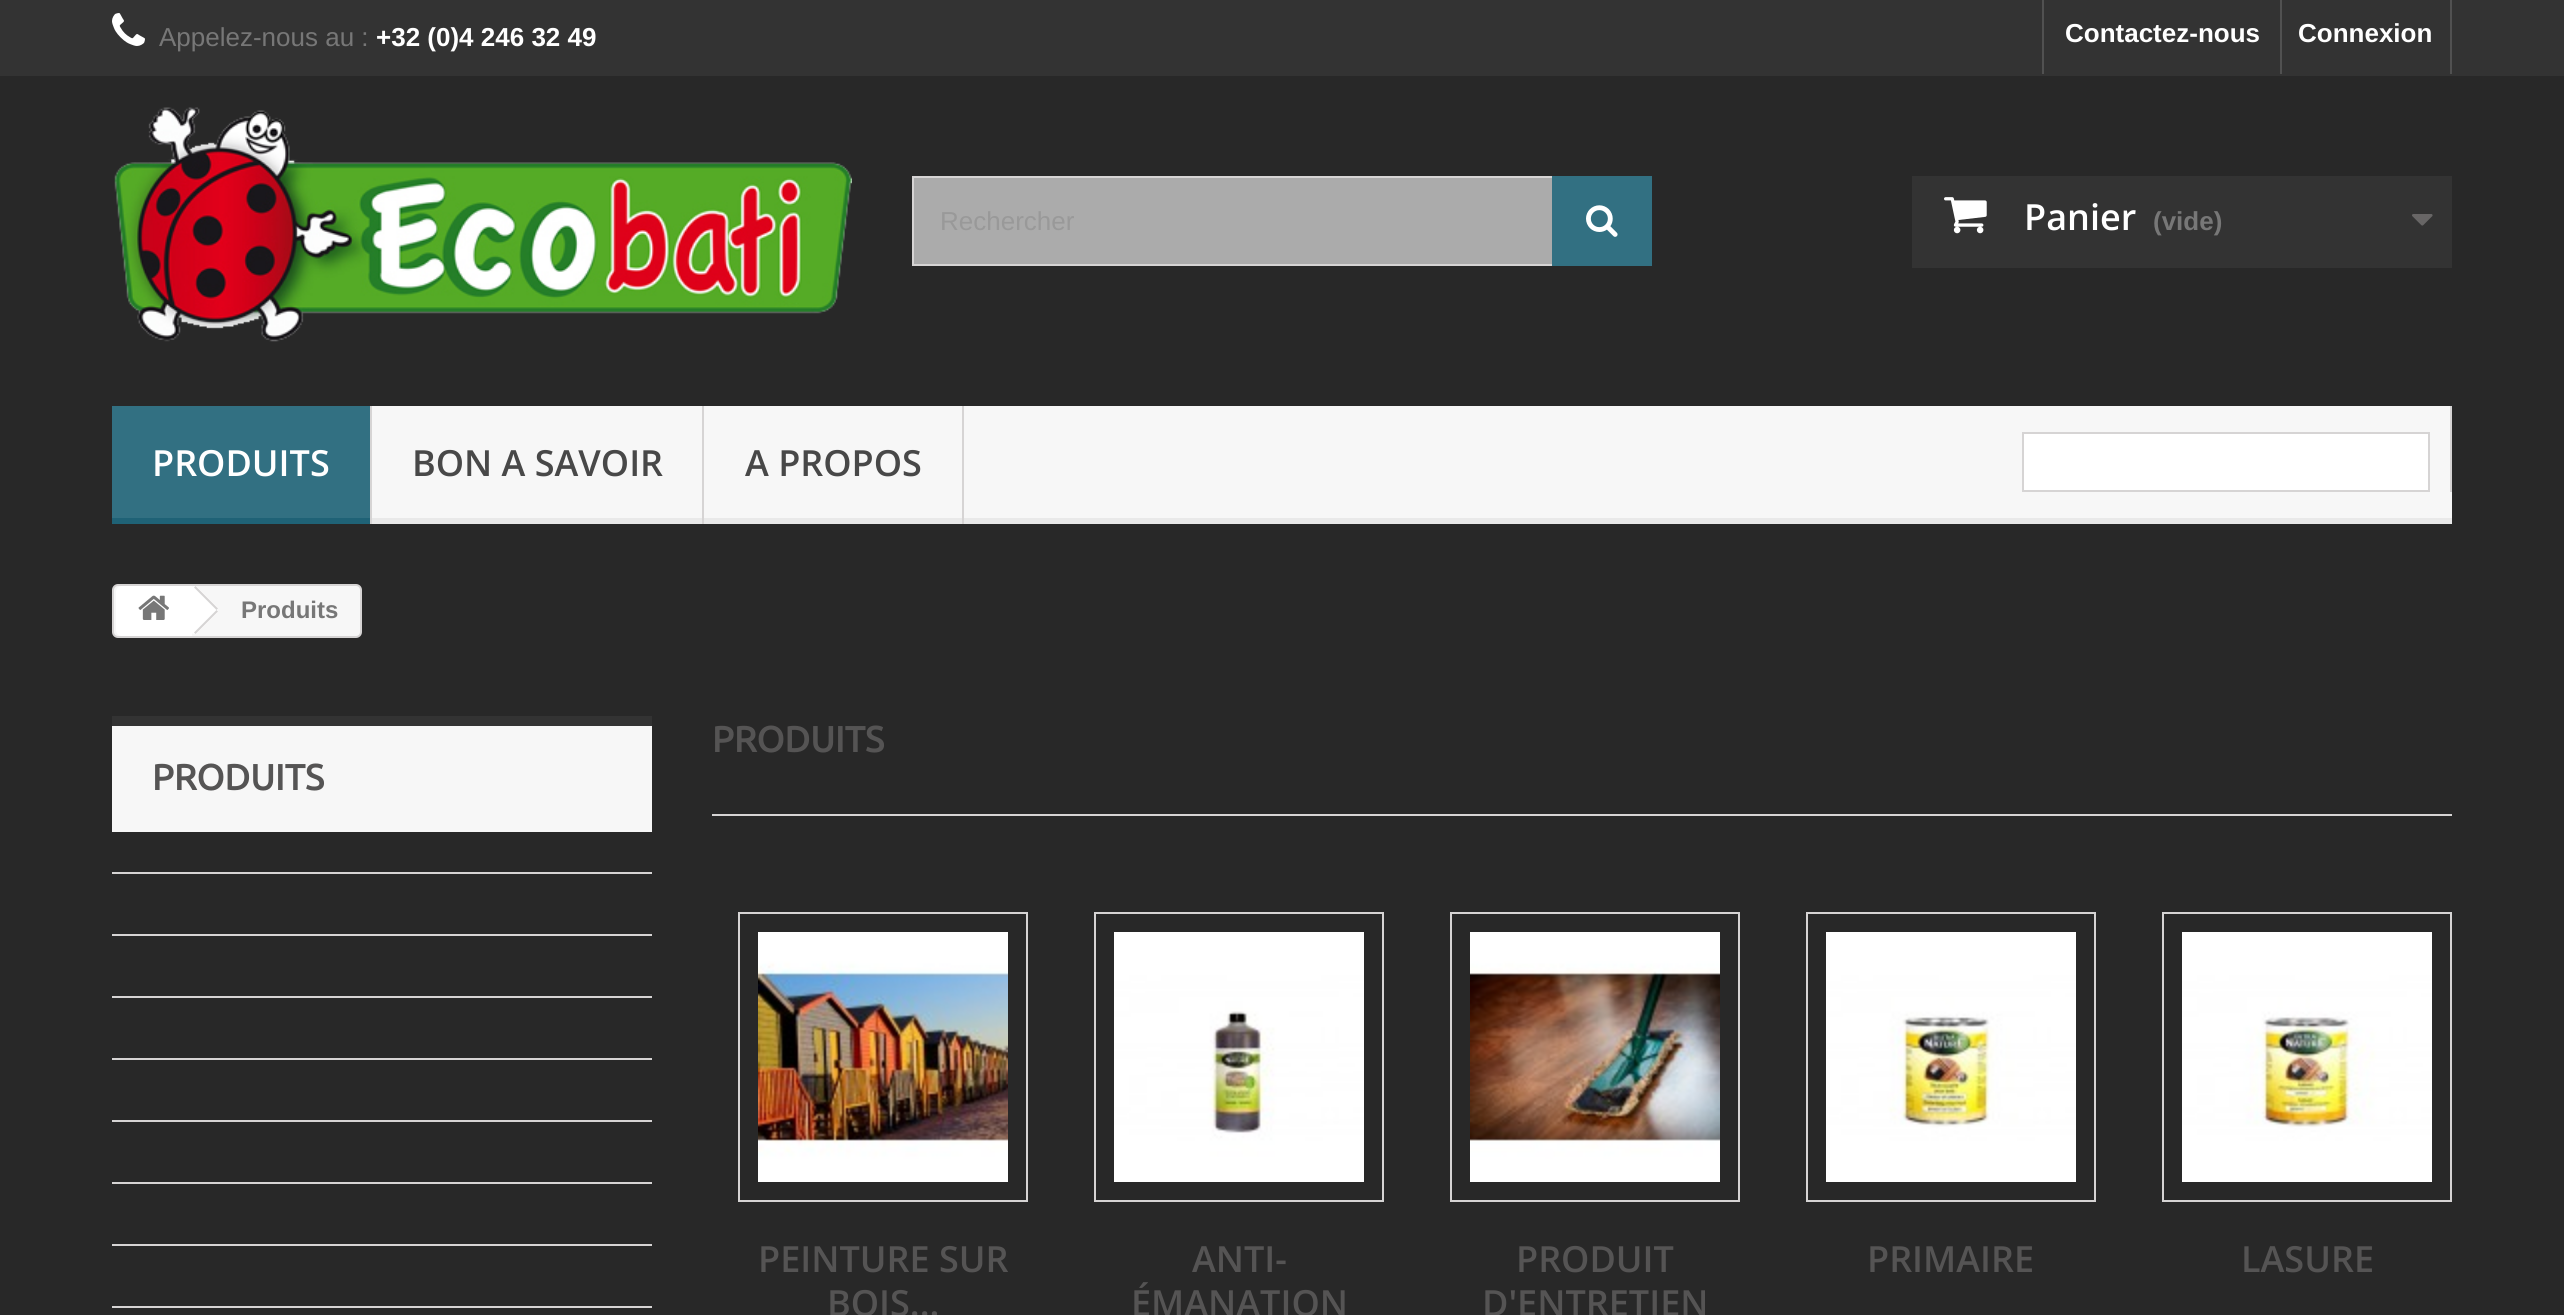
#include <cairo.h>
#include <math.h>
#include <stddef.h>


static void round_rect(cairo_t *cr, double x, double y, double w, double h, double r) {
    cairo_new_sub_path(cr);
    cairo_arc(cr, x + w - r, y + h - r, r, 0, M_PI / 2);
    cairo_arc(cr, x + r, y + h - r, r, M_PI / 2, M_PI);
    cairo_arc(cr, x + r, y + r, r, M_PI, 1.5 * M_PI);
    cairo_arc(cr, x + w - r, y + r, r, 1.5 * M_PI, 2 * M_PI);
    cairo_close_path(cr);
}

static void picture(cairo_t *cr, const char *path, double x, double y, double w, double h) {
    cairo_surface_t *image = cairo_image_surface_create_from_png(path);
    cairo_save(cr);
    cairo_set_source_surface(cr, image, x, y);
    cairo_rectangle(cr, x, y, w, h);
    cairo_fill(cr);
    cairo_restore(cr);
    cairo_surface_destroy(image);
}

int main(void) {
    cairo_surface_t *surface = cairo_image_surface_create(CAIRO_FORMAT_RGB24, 2564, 1315);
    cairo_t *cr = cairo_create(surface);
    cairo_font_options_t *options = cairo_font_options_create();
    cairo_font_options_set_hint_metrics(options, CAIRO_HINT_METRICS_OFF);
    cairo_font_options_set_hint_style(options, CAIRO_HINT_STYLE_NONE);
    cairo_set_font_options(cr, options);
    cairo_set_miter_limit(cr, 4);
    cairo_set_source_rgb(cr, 0.157, 0.157, 0.157);
    cairo_paint(cr);
    cairo_set_source_rgb(cr, 0.2, 0.2, 0.2);
    cairo_rectangle(cr, 0, 0, 2564, 76);
    cairo_fill(cr);
    picture(cr, "img1.png", 112, 13, 33, 33);
    cairo_select_font_face(cr, "Liberation Sans", CAIRO_FONT_SLANT_NORMAL, CAIRO_FONT_WEIGHT_NORMAL);
    cairo_set_font_size(cr, 26);
    cairo_set_source_rgb(cr, 0.467, 0.467, 0.467);
    cairo_move_to(cr, 159, 46);
    cairo_show_text(cr, "Appelez-nous au :");
    cairo_select_font_face(cr, "Liberation Sans", CAIRO_FONT_SLANT_NORMAL, CAIRO_FONT_WEIGHT_BOLD);
    cairo_set_source_rgb(cr, 1, 1, 1);
    cairo_move_to(cr, 376, 46);
    cairo_show_text(cr, "+32 (0)4 246 32 49");
    cairo_set_source_rgb(cr, 0.318, 0.318, 0.318);
    cairo_rectangle(cr, 2042, 0, 2, 74);
    cairo_fill(cr);
    cairo_set_source_rgb(cr, 1, 1, 1);
    cairo_move_to(cr, 2065, 42);
    cairo_show_text(cr, "Contactez-nous");
    cairo_set_source_rgb(cr, 0.318, 0.318, 0.318);
    cairo_rectangle(cr, 2450, 0, 2, 74);
    cairo_fill(cr);
    cairo_rectangle(cr, 2280, 0, 2, 74);
    cairo_fill(cr);
    cairo_set_source_rgb(cr, 1, 1, 1);
    cairo_move_to(cr, 2298, 42);
    cairo_show_text(cr, "Connexion");
    picture(cr, "img2.png", 114, 107, 738, 235);
    cairo_set_source_rgb(cr, 0.671, 0.671, 0.671);
    cairo_rectangle(cr, 914, 178, 638, 86);
    cairo_fill(cr);
    cairo_rectangle(cr, 913, 177, 738, 88);
    cairo_set_source_rgb(cr, 0.839, 0.831, 0.831);
    cairo_stroke(cr);
    cairo_select_font_face(cr, "Liberation Sans", CAIRO_FONT_SLANT_NORMAL, CAIRO_FONT_WEIGHT_NORMAL);
    cairo_set_source_rgb(cr, 0.6, 0.6, 0.6);
    cairo_move_to(cr, 940, 230);
    cairo_show_text(cr, "Rechercher");
    cairo_set_source_rgb(cr, 0.196, 0.439, 0.51);
    cairo_rectangle(cr, 1552, 176, 100, 90);
    cairo_fill(cr);
    picture(cr, "img3.png", 1586, 205, 32, 32);
    cairo_set_source_rgb(cr, 0.2, 0.2, 0.2);
    cairo_rectangle(cr, 1912, 176, 540, 92);
    cairo_fill(cr);
    picture(cr, "img4.png", 1944, 197, 43, 37);
    cairo_select_font_face(cr, "Open Sans SemiBold", CAIRO_FONT_SLANT_NORMAL, CAIRO_FONT_WEIGHT_NORMAL);
    cairo_set_font_size(cr, 36);
    cairo_set_source_rgb(cr, 1, 1, 1);
    cairo_move_to(cr, 2024, 230);
    cairo_show_text(cr, "Panier");
    cairo_select_font_face(cr, "Liberation Sans", CAIRO_FONT_SLANT_NORMAL, CAIRO_FONT_WEIGHT_BOLD);
    cairo_set_font_size(cr, 26);
    cairo_set_source_rgb(cr, 0.467, 0.467, 0.467);
    cairo_move_to(cr, 2153, 230);
    cairo_show_text(cr, "(vide)");
    picture(cr, "img5.png", 2412, 214, 21, 12);
    cairo_set_source_rgb(cr, 0.965, 0.965, 0.965);
    cairo_rectangle(cr, 372, 406, 2080, 112);
    cairo_fill(cr);
    cairo_set_source_rgb(cr, 0.914, 0.914, 0.914);
    cairo_rectangle(cr, 372, 518, 2080, 6);
    cairo_fill(cr);
    cairo_set_source_rgb(cr, 0.839, 0.831, 0.831);
    cairo_rectangle(cr, 370, 406, 2, 118);
    cairo_fill(cr);
    cairo_set_source_rgb(cr, 0.196, 0.439, 0.51);
    cairo_rectangle(cr, 112, 406, 258, 112);
    cairo_fill(cr);
    cairo_set_source_rgb(cr, 0.122, 0.384, 0.463);
    cairo_rectangle(cr, 112, 518, 258, 6);
    cairo_fill(cr);
    cairo_select_font_face(cr, "Open Sans SemiBold", CAIRO_FONT_SLANT_NORMAL, CAIRO_FONT_WEIGHT_NORMAL);
    cairo_set_font_size(cr, 36);
    cairo_set_source_rgb(cr, 1, 1, 1);
    cairo_move_to(cr, 152, 476);
    cairo_show_text(cr, "PRODUITS");
    cairo_set_source_rgb(cr, 0.839, 0.831, 0.831);
    cairo_rectangle(cr, 702, 406, 2, 118);
    cairo_fill(cr);
    cairo_set_source_rgb(cr, 0.282, 0.282, 0.282);
    cairo_move_to(cr, 412, 476);
    cairo_show_text(cr, "BON A SAVOIR");
    cairo_set_source_rgb(cr, 0.839, 0.831, 0.831);
    cairo_rectangle(cr, 962, 406, 2, 118);
    cairo_fill(cr);
    cairo_set_source_rgb(cr, 0.282, 0.282, 0.282);
    cairo_move_to(cr, 745, 476);
    cairo_show_text(cr, "A PROPOS");
    cairo_set_source_rgb(cr, 0.839, 0.831, 0.831);
    cairo_rectangle(cr, 2450, 406, 2, 86);
    cairo_fill(cr);
    cairo_set_source_rgb(cr, 1, 1, 1);
    cairo_rectangle(cr, 2023, 433, 406, 58);
    cairo_fill_preserve(cr);
    cairo_set_source_rgb(cr, 0.839, 0.831, 0.831);
    cairo_stroke(cr);
    cairo_set_source_rgb(cr, 0.965, 0.965, 0.965);
    round_rect(cr, 113, 585, 248, 52, 5);
    cairo_fill_preserve(cr);
    cairo_set_source_rgb(cr, 0.839, 0.831, 0.831);
    cairo_stroke(cr);
    cairo_set_source_rgb(cr, 1, 1, 1);
    cairo_new_path(cr);
    cairo_move_to(cr, 122, 586);
    cairo_line_to(cr, 192, 586);
    cairo_line_to(cr, 192, 636);
    cairo_line_to(cr, 122, 636);
    cairo_curve_to(cr, 118.5, 636, 116, 633.5, 116, 630);
    cairo_line_to(cr, 116, 592);
    cairo_curve_to(cr, 116, 588.5, 118.5, 586, 122, 586);
    cairo_close_path(cr);
    cairo_fill(cr);
    picture(cr, "img6.png", 138, 595, 31, 25);
    cairo_new_path(cr);
    cairo_move_to(cr, 197, 587);
    cairo_line_to(cr, 217, 607);
    cairo_curve_to(cr, 218, 609, 218, 611, 217, 613);
    cairo_line_to(cr, 197, 633);
    cairo_curve_to(cr, 195, 634, 193, 634, 191, 633);
    cairo_line_to(cr, 171, 613);
    cairo_curve_to(cr, 170, 611, 170, 609, 171, 607);
    cairo_line_to(cr, 191, 587);
    cairo_curve_to(cr, 193, 586, 195, 586, 197, 587);
    cairo_close_path(cr);
    cairo_fill(cr);
    cairo_set_source_rgb(cr, 0.839, 0.831, 0.831);
    cairo_new_path(cr);
    cairo_move_to(cr, 195.5, 586);
    cairo_line_to(cr, 218, 608.5);
    cairo_line_to(cr, 216.5, 610);
    cairo_line_to(cr, 194, 587.5);
    cairo_close_path(cr);
    cairo_move_to(cr, 216.5, 610);
    cairo_line_to(cr, 218, 611.5);
    cairo_line_to(cr, 195.5, 634);
    cairo_line_to(cr, 194, 632.5);
    cairo_close_path(cr);
    cairo_fill(cr);
    cairo_select_font_face(cr, "Liberation Sans", CAIRO_FONT_SLANT_NORMAL, CAIRO_FONT_WEIGHT_BOLD);
    cairo_set_font_size(cr, 24);
    cairo_set_source_rgb(cr, 0.467, 0.467, 0.467);
    cairo_move_to(cr, 241, 618);
    cairo_show_text(cr, "Produits");
    cairo_set_source_rgb(cr, 0.965, 0.965, 0.965);
    cairo_rectangle(cr, 112, 726, 540, 106);
    cairo_fill(cr);
    cairo_set_source_rgb(cr, 0.2, 0.2, 0.2);
    cairo_rectangle(cr, 112, 716, 540, 10);
    cairo_fill(cr);
    cairo_select_font_face(cr, "Ubuntu", CAIRO_FONT_SLANT_NORMAL, CAIRO_FONT_WEIGHT_BOLD);
    cairo_set_font_size(cr, 36);
    cairo_set_source_rgb(cr, 0.333, 0.329, 0.329);
    cairo_move_to(cr, 152, 790);
    cairo_show_text(cr, "PRODUITS");
    cairo_set_source_rgb(cr, 0.839, 0.831, 0.831);
    cairo_rectangle(cr, 112, 872, 540, 2);
    cairo_fill(cr);
    cairo_rectangle(cr, 112, 934, 540, 2);
    cairo_fill(cr);
    cairo_rectangle(cr, 112, 996, 540, 2);
    cairo_fill(cr);
    cairo_rectangle(cr, 112, 1058, 540, 2);
    cairo_fill(cr);
    cairo_rectangle(cr, 112, 1120, 540, 2);
    cairo_fill(cr);
    cairo_rectangle(cr, 112, 1182, 540, 2);
    cairo_fill(cr);
    cairo_rectangle(cr, 112, 1244, 540, 2);
    cairo_fill(cr);
    cairo_rectangle(cr, 112, 1306, 540, 2);
    cairo_fill(cr);
    cairo_set_source_rgb(cr, 0.333, 0.329, 0.329);
    cairo_move_to(cr, 712, 752);
    cairo_show_text(cr, "PRODUITS");
    cairo_set_source_rgb(cr, 0.839, 0.831, 0.831);
    cairo_rectangle(cr, 712, 814, 1740, 2);
    cairo_fill(cr);
    cairo_rectangle(cr, 739, 913, 288, 288);
    cairo_stroke(cr);
    picture(cr, "img7.png", 758, 932, 250, 250);
    cairo_select_font_face(cr, "Open Sans SemiBold", CAIRO_FONT_SLANT_NORMAL, CAIRO_FONT_WEIGHT_NORMAL);
    cairo_set_source_rgb(cr, 0.333, 0.329, 0.329);
    cairo_move_to(cr, 758, 1272);
    cairo_show_text(cr, "PEINTURE SUR");
    cairo_move_to(cr, 827, 1316);
    cairo_show_text(cr, "BOIS...");
    cairo_rectangle(cr, 1095, 913, 288, 288);
    cairo_set_source_rgb(cr, 0.839, 0.831, 0.831);
    cairo_stroke(cr);
    picture(cr, "img8.png", 1114, 932, 250, 250);
    cairo_set_source_rgb(cr, 0.333, 0.329, 0.329);
    cairo_move_to(cr, 1192, 1272);
    cairo_show_text(cr, "ANTI-");
    cairo_move_to(cr, 1131, 1316);
    cairo_show_text(cr, "ÉMANATION");
    cairo_rectangle(cr, 1451, 913, 288, 288);
    cairo_set_source_rgb(cr, 0.839, 0.831, 0.831);
    cairo_stroke(cr);
    picture(cr, "img9.png", 1470, 932, 250, 250);
    cairo_set_source_rgb(cr, 0.333, 0.329, 0.329);
    cairo_move_to(cr, 1516, 1272);
    cairo_show_text(cr, "PRODUIT");
    cairo_move_to(cr, 1482, 1316);
    cairo_show_text(cr, "D'ENTRETIEN");
    cairo_rectangle(cr, 1807, 913, 288, 288);
    cairo_set_source_rgb(cr, 0.839, 0.831, 0.831);
    cairo_stroke(cr);
    picture(cr, "img10.png", 1826, 932, 250, 250);
    cairo_set_source_rgb(cr, 0.333, 0.329, 0.329);
    cairo_move_to(cr, 1867, 1272);
    cairo_show_text(cr, "PRIMAIRE");
    cairo_rectangle(cr, 2163, 913, 288, 288);
    cairo_set_source_rgb(cr, 0.839, 0.831, 0.831);
    cairo_stroke(cr);
    picture(cr, "img11.png", 2182, 932, 250, 250);
    cairo_set_source_rgb(cr, 0.333, 0.329, 0.329);
    cairo_move_to(cr, 2241, 1272);
    cairo_show_text(cr, "LASURE");
    cairo_surface_write_to_png(surface, "page.png");
    cairo_font_options_destroy(options);
    cairo_destroy(cr);
    cairo_surface_destroy(surface);
    return 0;
}
